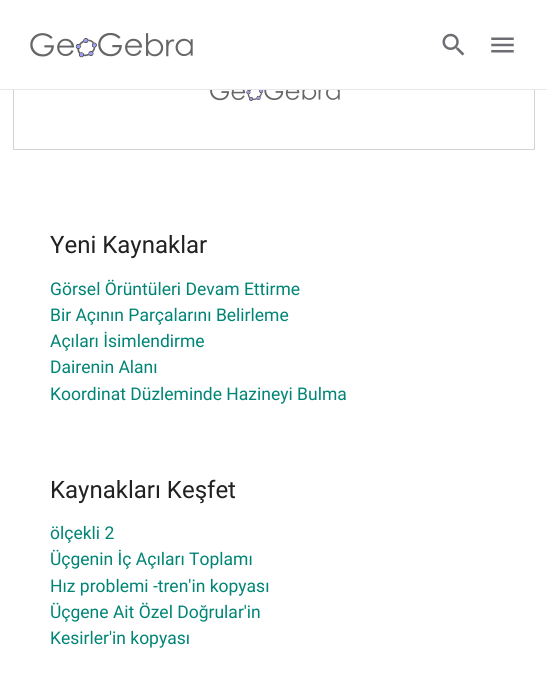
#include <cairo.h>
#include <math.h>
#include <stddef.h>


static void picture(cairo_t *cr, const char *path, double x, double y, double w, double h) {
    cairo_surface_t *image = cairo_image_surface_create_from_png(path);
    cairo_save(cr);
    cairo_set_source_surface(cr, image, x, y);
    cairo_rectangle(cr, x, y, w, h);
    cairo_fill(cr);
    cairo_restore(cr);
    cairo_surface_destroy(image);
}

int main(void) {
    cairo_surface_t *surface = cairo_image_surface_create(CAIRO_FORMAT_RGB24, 547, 680);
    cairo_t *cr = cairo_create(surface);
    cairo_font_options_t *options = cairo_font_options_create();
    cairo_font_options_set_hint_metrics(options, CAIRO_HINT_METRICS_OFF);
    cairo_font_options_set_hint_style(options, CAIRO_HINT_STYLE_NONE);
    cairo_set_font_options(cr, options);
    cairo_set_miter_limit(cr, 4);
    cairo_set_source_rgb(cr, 1, 1, 1);
    cairo_paint(cr);
    picture(cr, "img4.png", 210, 90, 130, 11);
    cairo_rectangle(cr, 13.5, -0.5, 521, 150);
    cairo_set_source_rgb(cr, 0.827, 0.827, 0.827);
    cairo_set_line_width(cr, 1);
    cairo_stroke(cr);
    cairo_set_source_rgb(cr, 1, 1, 1);
    cairo_rectangle(cr, 13, 0, 522, 89);
    cairo_fill(cr);
    cairo_set_source_rgb(cr, 0.902, 0.902, 0.922);
    cairo_rectangle(cr, 0, 89, 547, 1);
    cairo_fill(cr);
    picture(cr, "img1.png", 30, 33, 163, 25);
    picture(cr, "img2.png", 442, 33, 23, 23);
    picture(cr, "img3.png", 491, 37, 23, 16);
    cairo_select_font_face(cr, "Roboto", CAIRO_FONT_SLANT_NORMAL, CAIRO_FONT_WEIGHT_NORMAL);
    cairo_set_font_size(cr, 24);
    cairo_set_source_rgb(cr, 0.129, 0.129, 0.129);
    cairo_move_to(cr, 50, 253);
    cairo_show_text(cr, "Yeni Kaynaklar");
    cairo_set_font_size(cr, 17.5);
    cairo_set_source_rgb(cr, 0, 0.518, 0.459);
    cairo_move_to(cr, 50, 295);
    cairo_show_text(cr, "Görsel Örüntüleri Devam Ettirme");
    cairo_move_to(cr, 50, 321);
    cairo_show_text(cr, "Bir Açının Parçalarını Belirleme");
    cairo_move_to(cr, 50, 347);
    cairo_show_text(cr, "Açıları İsimlendirme");
    cairo_move_to(cr, 50, 373);
    cairo_show_text(cr, "Dairenin Alanı");
    cairo_move_to(cr, 50, 400);
    cairo_show_text(cr, "Koordinat Düzleminde Hazineyi Bulma");
    cairo_set_font_size(cr, 24);
    cairo_set_source_rgb(cr, 0.129, 0.129, 0.129);
    cairo_move_to(cr, 50, 498);
    cairo_show_text(cr, "Kaynakları Keşfet");
    cairo_set_font_size(cr, 17.5);
    cairo_set_source_rgb(cr, 0, 0.518, 0.459);
    cairo_move_to(cr, 50, 539);
    cairo_show_text(cr, "ölçekli 2");
    cairo_move_to(cr, 50, 565);
    cairo_show_text(cr, "Üçgenin İç Açıları Toplamı");
    cairo_move_to(cr, 50, 592);
    cairo_show_text(cr, "Hız problemi -tren'in kopyası");
    cairo_move_to(cr, 50, 618);
    cairo_show_text(cr, "Üçgene Ait Özel Doğrular'in");
    cairo_move_to(cr, 50, 644);
    cairo_show_text(cr, "Kesirler'in kopyası");
    cairo_surface_write_to_png(surface, "page.png");
    cairo_font_options_destroy(options);
    cairo_destroy(cr);
    cairo_surface_destroy(surface);
    return 0;
}
